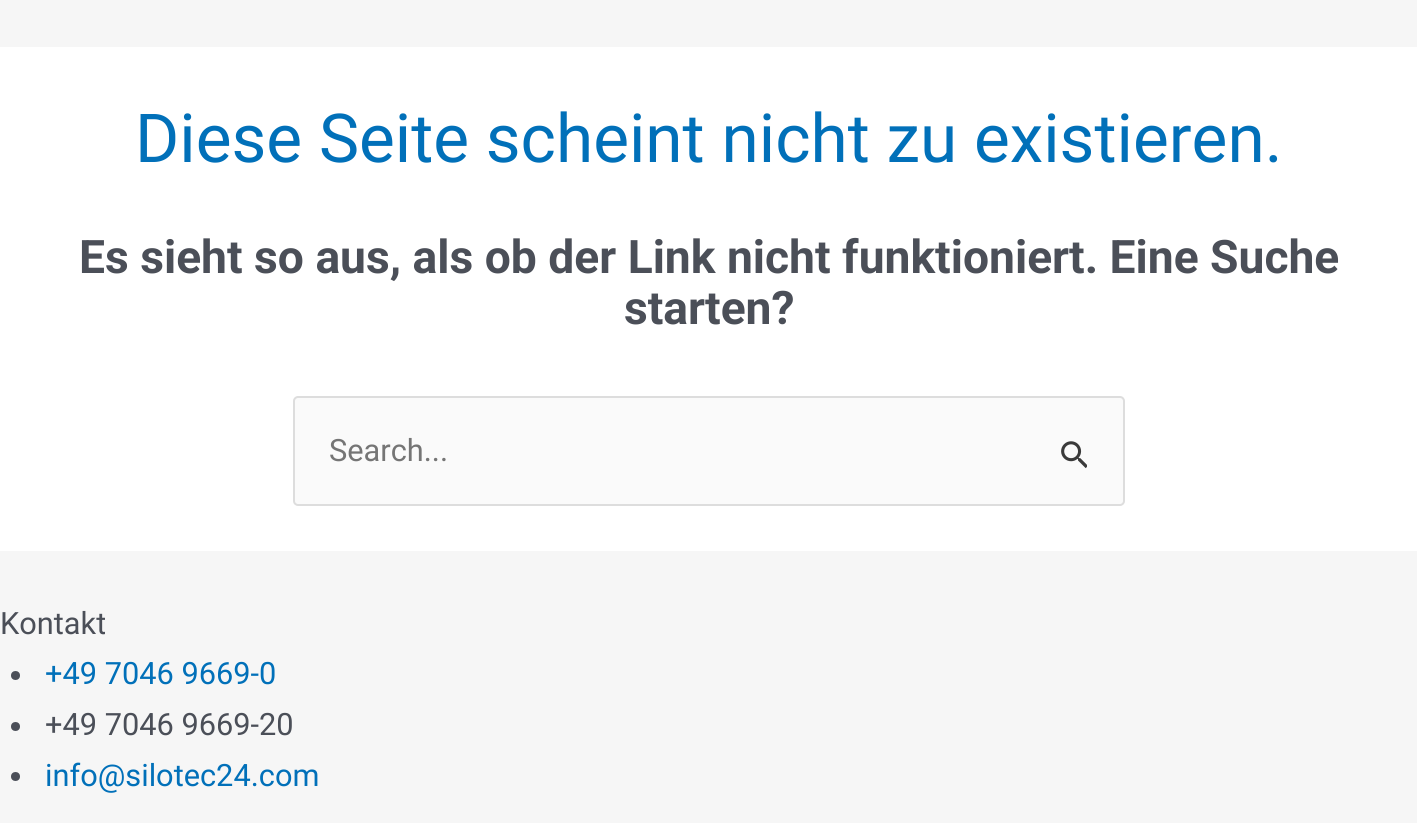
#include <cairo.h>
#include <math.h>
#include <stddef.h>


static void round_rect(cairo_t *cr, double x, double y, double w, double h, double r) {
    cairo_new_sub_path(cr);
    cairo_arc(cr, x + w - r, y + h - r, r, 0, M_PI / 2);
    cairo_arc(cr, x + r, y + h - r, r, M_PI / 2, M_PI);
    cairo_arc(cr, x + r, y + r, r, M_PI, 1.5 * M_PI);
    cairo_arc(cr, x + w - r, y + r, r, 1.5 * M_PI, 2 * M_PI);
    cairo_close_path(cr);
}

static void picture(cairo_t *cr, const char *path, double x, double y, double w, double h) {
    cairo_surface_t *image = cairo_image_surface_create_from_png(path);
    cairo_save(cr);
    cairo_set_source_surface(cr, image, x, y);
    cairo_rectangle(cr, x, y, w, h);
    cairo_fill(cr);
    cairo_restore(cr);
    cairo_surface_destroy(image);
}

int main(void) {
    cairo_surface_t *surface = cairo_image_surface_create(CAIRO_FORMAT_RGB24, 1417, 823);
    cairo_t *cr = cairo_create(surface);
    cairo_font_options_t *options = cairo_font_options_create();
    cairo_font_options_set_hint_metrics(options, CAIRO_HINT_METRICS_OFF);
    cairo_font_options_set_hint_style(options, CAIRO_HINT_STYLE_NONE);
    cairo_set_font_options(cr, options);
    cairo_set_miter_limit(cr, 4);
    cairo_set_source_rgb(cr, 0.961, 0.961, 0.961);
    cairo_paint(cr);
    cairo_set_source_rgb(cr, 1, 1, 1);
    cairo_rectangle(cr, 0, 47, 1417, 504);
    cairo_fill(cr);
    cairo_select_font_face(cr, "Roboto", CAIRO_FONT_SLANT_NORMAL, CAIRO_FONT_WEIGHT_NORMAL);
    cairo_set_font_size(cr, 67.5);
    cairo_set_source_rgb(cr, 0.004, 0.439, 0.725);
    cairo_move_to(cr, 135, 162);
    cairo_show_text(cr, "Diese Seite scheint nicht zu existieren.");
    cairo_select_font_face(cr, "Roboto", CAIRO_FONT_SLANT_NORMAL, CAIRO_FONT_WEIGHT_BOLD);
    cairo_set_font_size(cr, 46.2);
    cairo_set_source_rgb(cr, 0.294, 0.31, 0.345);
    cairo_move_to(cr, 79, 273);
    cairo_show_text(cr, "Es sieht so aus, als ob der Link nicht funktioniert. Eine Suche");
    cairo_move_to(cr, 624, 324);
    cairo_show_text(cr, "starten?");
    cairo_set_source_rgb(cr, 0.98, 0.98, 0.98);
    round_rect(cr, 294, 397, 830, 108, 4);
    cairo_fill_preserve(cr);
    cairo_set_source_rgb(cr, 0.867, 0.867, 0.867);
    cairo_stroke(cr);
    cairo_select_font_face(cr, "Roboto", CAIRO_FONT_SLANT_NORMAL, CAIRO_FONT_WEIGHT_NORMAL);
    cairo_set_font_size(cr, 30.75);
    cairo_set_source_rgb(cr, 0.459, 0.459, 0.459);
    cairo_move_to(cr, 329, 461);
    cairo_show_text(cr, "Search...");
    picture(cr, "img1.png", 1061, 441, 26, 28);
    cairo_set_source_rgb(cr, 0.294, 0.31, 0.345);
    cairo_move_to(cr, 0, 634);
    cairo_show_text(cr, "Kontakt");
    cairo_new_path(cr);
    cairo_arc(cr, 15.5, 675.5, 4.5, 0, 2 * M_PI);
    cairo_fill(cr);
    cairo_set_source_rgb(cr, 0.004, 0.439, 0.725);
    cairo_move_to(cr, 45, 684);
    cairo_show_text(cr, "+49 7046 9669-0");
    cairo_set_source_rgb(cr, 0.294, 0.31, 0.345);
    cairo_new_path(cr);
    cairo_arc(cr, 15.5, 726.5, 4.5, 0, 2 * M_PI);
    cairo_fill(cr);
    cairo_move_to(cr, 45, 735);
    cairo_show_text(cr, "+49 7046 9669-20");
    cairo_new_path(cr);
    cairo_arc(cr, 15.5, 776.5, 4.5, 0, 2 * M_PI);
    cairo_fill(cr);
    cairo_set_source_rgb(cr, 0.004, 0.439, 0.725);
    cairo_move_to(cr, 45, 786);
    cairo_show_text(cr, "info@silotec24.com");
    cairo_surface_write_to_png(surface, "page.png");
    cairo_font_options_destroy(options);
    cairo_destroy(cr);
    cairo_surface_destroy(surface);
    return 0;
}
